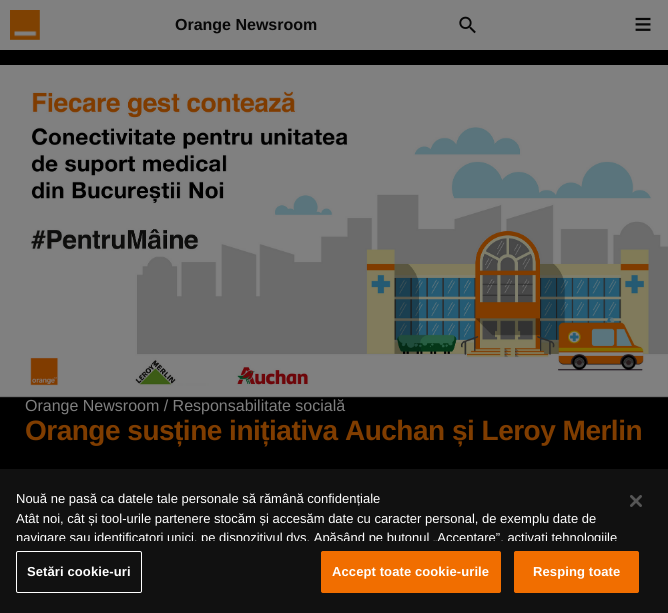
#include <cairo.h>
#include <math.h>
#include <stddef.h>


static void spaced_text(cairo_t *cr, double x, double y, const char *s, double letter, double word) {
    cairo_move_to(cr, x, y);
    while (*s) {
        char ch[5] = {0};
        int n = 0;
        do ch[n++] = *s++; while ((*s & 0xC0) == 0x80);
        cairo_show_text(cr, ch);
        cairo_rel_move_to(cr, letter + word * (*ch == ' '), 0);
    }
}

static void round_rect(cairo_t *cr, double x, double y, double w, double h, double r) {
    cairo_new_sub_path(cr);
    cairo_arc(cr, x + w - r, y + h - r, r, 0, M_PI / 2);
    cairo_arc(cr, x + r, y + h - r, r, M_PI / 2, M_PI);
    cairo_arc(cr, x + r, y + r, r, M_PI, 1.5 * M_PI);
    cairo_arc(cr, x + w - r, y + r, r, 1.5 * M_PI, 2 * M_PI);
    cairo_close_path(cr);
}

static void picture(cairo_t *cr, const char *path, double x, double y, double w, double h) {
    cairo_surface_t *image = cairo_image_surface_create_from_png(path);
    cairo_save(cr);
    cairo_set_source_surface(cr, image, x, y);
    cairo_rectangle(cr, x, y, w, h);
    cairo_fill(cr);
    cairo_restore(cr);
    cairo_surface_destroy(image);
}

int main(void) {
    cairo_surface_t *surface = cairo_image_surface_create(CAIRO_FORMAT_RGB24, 668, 613);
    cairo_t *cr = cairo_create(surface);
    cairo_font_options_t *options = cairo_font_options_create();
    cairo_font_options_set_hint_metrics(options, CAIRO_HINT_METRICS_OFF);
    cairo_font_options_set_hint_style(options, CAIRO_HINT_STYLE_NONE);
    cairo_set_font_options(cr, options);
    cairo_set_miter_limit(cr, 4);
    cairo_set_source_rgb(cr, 0, 0, 0);
    cairo_paint(cr);
    cairo_set_source_rgb(cr, 0.502, 0.502, 0.502);
    cairo_rectangle(cr, 0, 0, 668, 50);
    cairo_fill(cr);
    picture(cr, "img1.png", 10, 10, 30, 30);
    cairo_select_font_face(cr, "Liberation Sans", CAIRO_FONT_SLANT_NORMAL, CAIRO_FONT_WEIGHT_BOLD);
    cairo_set_font_size(cr, 16);
    cairo_set_source_rgb(cr, 0.035, 0.035, 0.035);
    cairo_move_to(cr, 175, 30);
    cairo_show_text(cr, "Orange Newsroom");
    picture(cr, "img2.png", 459, 16, 17, 18);
    cairo_select_font_face(cr, "Liberation Serif", CAIRO_FONT_SLANT_NORMAL, CAIRO_FONT_WEIGHT_BOLD);
    cairo_set_font_size(cr, 32);
    cairo_move_to(cr, 634, 35);
    cairo_show_text(cr, "≡");
    picture(cr, "img3.png", 0, 65, 668, 333);
    cairo_select_font_face(cr, "Liberation Sans", CAIRO_FONT_SLANT_NORMAL, CAIRO_FONT_WEIGHT_NORMAL);
    cairo_set_font_size(cr, 16);
    cairo_set_source_rgb(cr, 0.502, 0.502, 0.502);
    cairo_move_to(cr, 25, 411);
    cairo_show_text(cr, "Orange Newsroom / Responsabilitate socială");
    cairo_select_font_face(cr, "Liberation Sans", CAIRO_FONT_SLANT_NORMAL, CAIRO_FONT_WEIGHT_BOLD);
    cairo_set_font_size(cr, 28);
    cairo_set_source_rgb(cr, 0.502, 0.239, 0);
    spaced_text(cr, 25, 440, "Orange susține inițiativa Auchan și Leroy Merlin", -0.5, 0);
    cairo_set_source_rgb(cr, 0.067, 0.067, 0.067);
    cairo_rectangle(cr, 0, 469, 668, 144);
    cairo_fill(cr);
    cairo_select_font_face(cr, "Liberation Sans", CAIRO_FONT_SLANT_NORMAL, CAIRO_FONT_WEIGHT_NORMAL);
    cairo_set_font_size(cr, 13);
    cairo_set_source_rgb(cr, 1, 1, 1);
    cairo_move_to(cr, 16, 503);
    cairo_show_text(cr, "Nouă ne pasă ca datele tale personale să rămână confidențiale");
    cairo_move_to(cr, 16, 523);
    cairo_show_text(cr, "Atât noi, cât și tool-urile partenere stocăm și accesăm date cu caracter personal, de exemplu date de");
    cairo_save(cr);
    cairo_rectangle(cr, 16, 489, 603, 52);
    cairo_clip(cr);
    cairo_move_to(cr, 16, 542);
    cairo_show_text(cr, "navigare sau identificatori unici, pe dispozitivul dvs. Apăsând pe butonul „Acceptare”, activați tehnologiile");
    cairo_restore(cr);
    round_rect(cr, 16.5, 551.5, 125, 41, 1.5);
    cairo_set_line_width(cr, 1);
    cairo_stroke(cr);
    cairo_select_font_face(cr, "Liberation Sans", CAIRO_FONT_SLANT_NORMAL, CAIRO_FONT_WEIGHT_BOLD);
    spaced_text(cr, 27, 576, "Setări cookie-uri", 0.1, 0);
    cairo_set_source_rgb(cr, 0.945, 0.431, 0);
    round_rect(cr, 321.5, 551.5, 179, 41, 1.5);
    cairo_fill_preserve(cr);
    cairo_stroke(cr);
    cairo_set_source_rgb(cr, 1, 1, 1);
    spaced_text(cr, 332, 576, "Accept toate cookie-urile", 0.1, 0);
    cairo_set_source_rgb(cr, 0.945, 0.431, 0);
    round_rect(cr, 514.5, 551.5, 124, 41, 1.5);
    cairo_fill_preserve(cr);
    cairo_stroke(cr);
    cairo_set_source_rgb(cr, 1, 1, 1);
    spaced_text(cr, 533, 576, "Resping toate", 0.1, 0);
    picture(cr, "img4.png", 630, 495, 12, 12);
    cairo_surface_write_to_png(surface, "page.png");
    cairo_font_options_destroy(options);
    cairo_destroy(cr);
    cairo_surface_destroy(surface);
    return 0;
}
